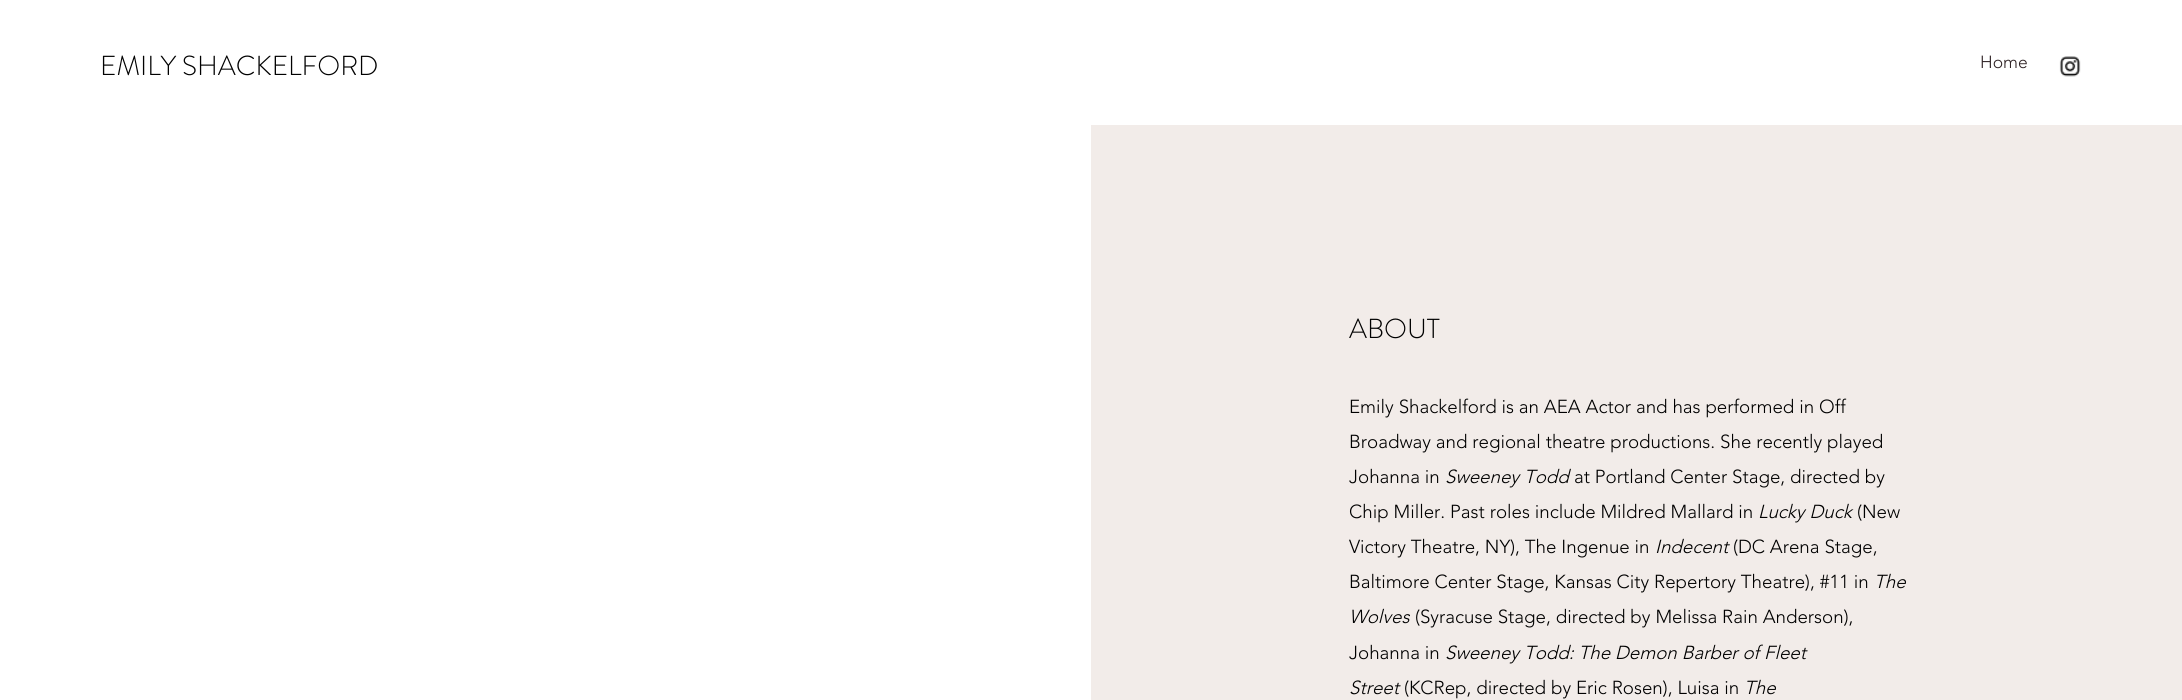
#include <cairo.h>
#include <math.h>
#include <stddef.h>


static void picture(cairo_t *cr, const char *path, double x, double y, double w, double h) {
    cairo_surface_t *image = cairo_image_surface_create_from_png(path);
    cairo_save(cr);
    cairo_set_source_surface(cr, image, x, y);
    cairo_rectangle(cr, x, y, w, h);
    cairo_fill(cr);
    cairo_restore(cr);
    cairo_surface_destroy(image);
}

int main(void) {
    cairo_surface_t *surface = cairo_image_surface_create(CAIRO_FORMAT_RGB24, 2182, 700);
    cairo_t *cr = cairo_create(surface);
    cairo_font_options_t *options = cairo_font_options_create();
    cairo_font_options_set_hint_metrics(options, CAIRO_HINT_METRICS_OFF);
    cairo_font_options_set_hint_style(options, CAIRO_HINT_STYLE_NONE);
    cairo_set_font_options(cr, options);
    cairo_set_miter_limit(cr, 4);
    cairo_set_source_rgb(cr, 1, 1, 1);
    cairo_paint(cr);
    cairo_select_font_face(cr, "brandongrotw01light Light", CAIRO_FONT_SLANT_NORMAL, CAIRO_FONT_WEIGHT_NORMAL);
    cairo_set_font_size(cr, 27.5);
    cairo_set_source_rgb(cr, 0, 0, 0);
    cairo_move_to(cr, 100, 75);
    cairo_show_text(cr, "EMILY SHACKELFORD");
    cairo_select_font_face(cr, "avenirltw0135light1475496 Light", CAIRO_FONT_SLANT_NORMAL, CAIRO_FONT_WEIGHT_NORMAL);
    cairo_set_font_size(cr, 17.5);
    cairo_set_source_rgb(cr, 0.18, 0.133, 0.141);
    cairo_move_to(cr, 1980, 68);
    cairo_show_text(cr, "Home");
    picture(cr, "img1.png", 2059, 56, 22, 21);
    cairo_set_source_rgb(cr, 0.949, 0.925, 0.914);
    cairo_rectangle(cr, 1091, 125, 1091, 575);
    cairo_fill(cr);
    cairo_select_font_face(cr, "brandongrotw01light Light", CAIRO_FONT_SLANT_NORMAL, CAIRO_FONT_WEIGHT_NORMAL);
    cairo_set_font_size(cr, 27.5);
    cairo_set_source_rgb(cr, 0, 0, 0);
    cairo_move_to(cr, 1349, 338);
    cairo_show_text(cr, "ABOUT");
    cairo_select_font_face(cr, "avenirltw0135light1475496 Light", CAIRO_FONT_SLANT_NORMAL, CAIRO_FONT_WEIGHT_NORMAL);
    cairo_set_font_size(cr, 18.75);
    cairo_move_to(cr, 1349, 413);
    cairo_show_text(cr, "Emily Shackelford is an AEA Actor and has performed in Off");
    cairo_move_to(cr, 1349, 448);
    cairo_show_text(cr, "Broadway and regional theatre productions. She recently played");
    cairo_move_to(cr, 1349, 483);
    cairo_show_text(cr, "Johanna in");
    cairo_select_font_face(cr, "avenirltw0135light1475496 Light", CAIRO_FONT_SLANT_ITALIC, CAIRO_FONT_WEIGHT_NORMAL);
    cairo_move_to(cr, 1445, 483);
    cairo_show_text(cr, "Sweeney Todd");
    cairo_select_font_face(cr, "avenirltw0135light1475496 Light", CAIRO_FONT_SLANT_NORMAL, CAIRO_FONT_WEIGHT_NORMAL);
    cairo_move_to(cr, 1574, 483);
    cairo_show_text(cr, "at Portland Center Stage, directed by");
    cairo_move_to(cr, 1349, 518);
    cairo_show_text(cr, "Chip Miller. Past roles include Mildred Mallard in");
    cairo_select_font_face(cr, "avenirltw0135light1475496 Light", CAIRO_FONT_SLANT_ITALIC, CAIRO_FONT_WEIGHT_NORMAL);
    cairo_move_to(cr, 1758, 518);
    cairo_show_text(cr, "Lucky Duck");
    cairo_select_font_face(cr, "avenirltw0135light1475496 Light", CAIRO_FONT_SLANT_NORMAL, CAIRO_FONT_WEIGHT_NORMAL);
    cairo_move_to(cr, 1857, 518);
    cairo_show_text(cr, "(New");
    cairo_move_to(cr, 1349, 553);
    cairo_show_text(cr, "Victory Theatre, NY), The Ingenue in");
    cairo_select_font_face(cr, "avenirltw0135light1475496 Light", CAIRO_FONT_SLANT_ITALIC, CAIRO_FONT_WEIGHT_NORMAL);
    cairo_move_to(cr, 1655, 553);
    cairo_show_text(cr, "Indecent");
    cairo_select_font_face(cr, "avenirltw0135light1475496 Light", CAIRO_FONT_SLANT_NORMAL, CAIRO_FONT_WEIGHT_NORMAL);
    cairo_move_to(cr, 1733, 553);
    cairo_show_text(cr, "(DC Arena Stage,");
    cairo_move_to(cr, 1349, 588);
    cairo_show_text(cr, "Baltimore Center Stage, Kansas City Repertory Theatre), #11 in");
    cairo_select_font_face(cr, "avenirltw0135light1475496 Light", CAIRO_FONT_SLANT_ITALIC, CAIRO_FONT_WEIGHT_NORMAL);
    cairo_move_to(cr, 1874, 588);
    cairo_show_text(cr, "The");
    cairo_move_to(cr, 1349, 623);
    cairo_show_text(cr, "Wolves");
    cairo_select_font_face(cr, "avenirltw0135light1475496 Light", CAIRO_FONT_SLANT_NORMAL, CAIRO_FONT_WEIGHT_NORMAL);
    cairo_move_to(cr, 1415, 623);
    cairo_show_text(cr, "(Syracuse Stage, directed by Melissa Rain Anderson),");
    cairo_move_to(cr, 1349, 659);
    cairo_show_text(cr, "Johanna in");
    cairo_select_font_face(cr, "avenirltw0135light1475496 Light", CAIRO_FONT_SLANT_ITALIC, CAIRO_FONT_WEIGHT_NORMAL);
    cairo_move_to(cr, 1445, 659);
    cairo_show_text(cr, "Sweeney Todd: The Demon Barber of Fleet");
    cairo_move_to(cr, 1349, 694);
    cairo_show_text(cr, "Street");
    cairo_select_font_face(cr, "avenirltw0135light1475496 Light", CAIRO_FONT_SLANT_NORMAL, CAIRO_FONT_WEIGHT_NORMAL);
    cairo_move_to(cr, 1404, 694);
    cairo_show_text(cr, "(KCRep, directed by Eric Rosen), Luisa in");
    cairo_select_font_face(cr, "avenirltw0135light1475496 Light", CAIRO_FONT_SLANT_ITALIC, CAIRO_FONT_WEIGHT_NORMAL);
    cairo_move_to(cr, 1744, 694);
    cairo_show_text(cr, "The");
    cairo_surface_write_to_png(surface, "page.png");
    cairo_font_options_destroy(options);
    cairo_destroy(cr);
    cairo_surface_destroy(surface);
    return 0;
}
